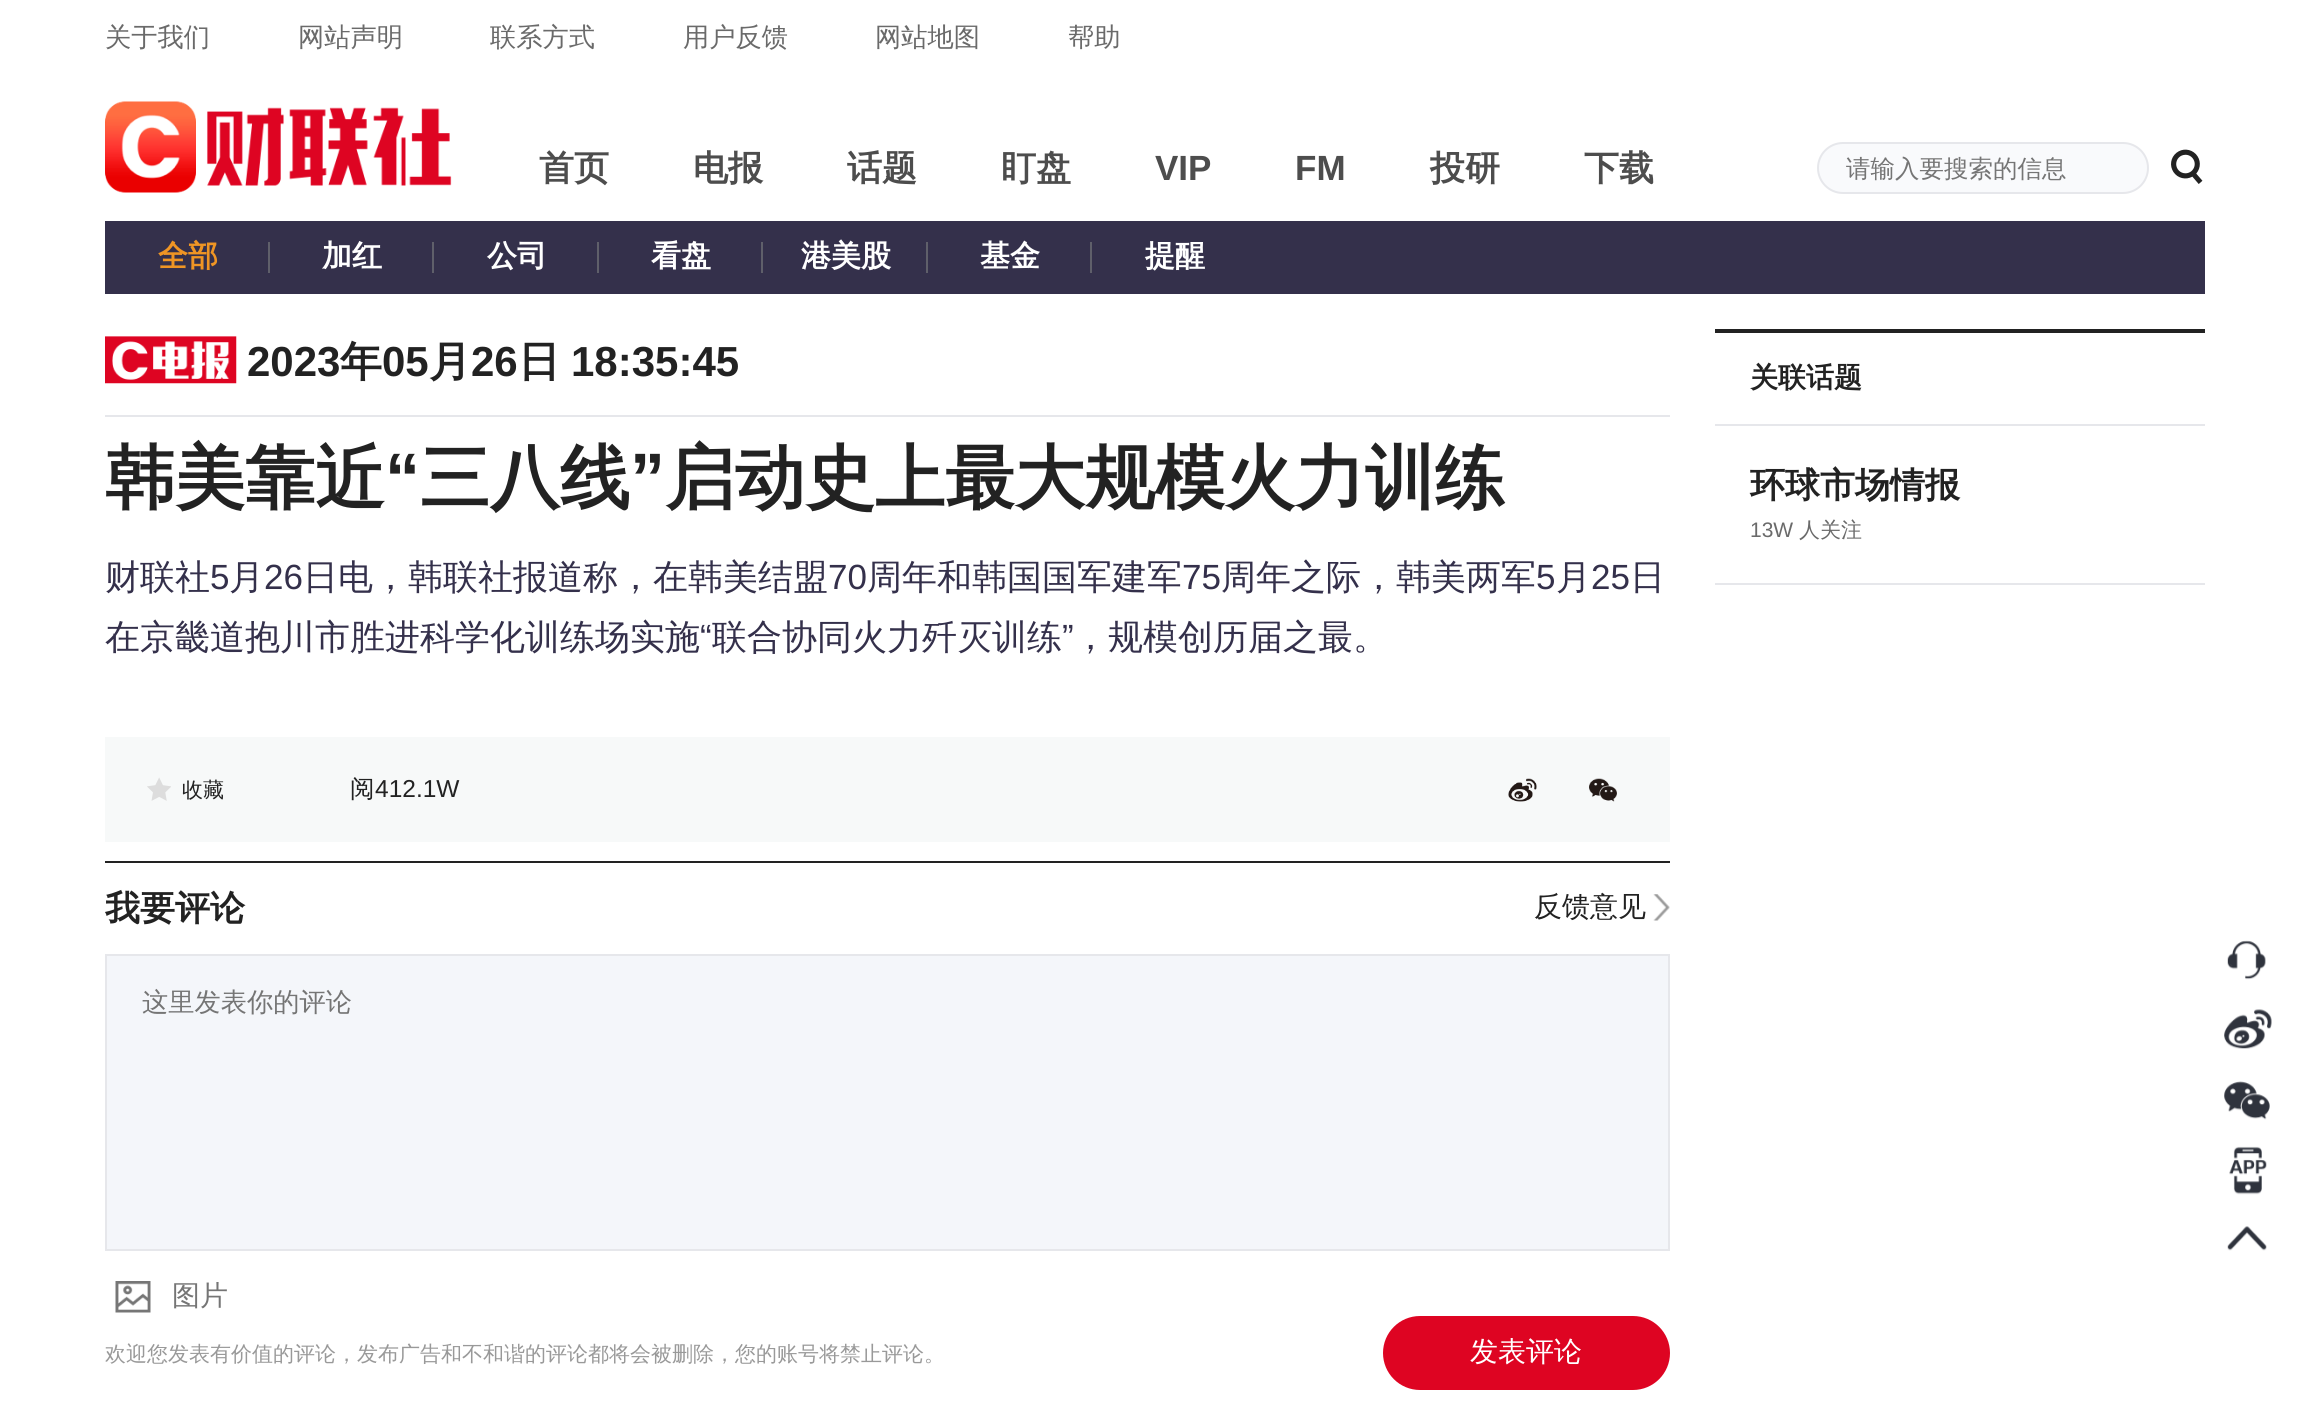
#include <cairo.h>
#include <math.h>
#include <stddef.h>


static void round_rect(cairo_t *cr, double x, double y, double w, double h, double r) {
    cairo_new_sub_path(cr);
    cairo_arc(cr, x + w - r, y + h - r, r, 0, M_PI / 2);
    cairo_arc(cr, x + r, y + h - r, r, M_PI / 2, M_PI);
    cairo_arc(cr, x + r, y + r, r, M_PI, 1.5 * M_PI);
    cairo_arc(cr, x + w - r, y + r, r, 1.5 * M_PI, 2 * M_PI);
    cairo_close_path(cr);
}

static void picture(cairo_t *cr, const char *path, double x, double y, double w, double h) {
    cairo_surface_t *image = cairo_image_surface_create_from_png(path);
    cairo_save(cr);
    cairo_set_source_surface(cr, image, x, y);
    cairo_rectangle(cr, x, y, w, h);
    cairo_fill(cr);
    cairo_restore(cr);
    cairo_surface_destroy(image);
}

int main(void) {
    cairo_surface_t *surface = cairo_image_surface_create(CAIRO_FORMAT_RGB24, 2309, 1422);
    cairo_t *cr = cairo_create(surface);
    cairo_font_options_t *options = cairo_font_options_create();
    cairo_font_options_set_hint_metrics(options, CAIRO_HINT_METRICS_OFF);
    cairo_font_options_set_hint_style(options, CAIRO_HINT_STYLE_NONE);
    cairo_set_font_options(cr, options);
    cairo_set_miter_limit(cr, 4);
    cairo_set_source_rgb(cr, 1, 1, 1);
    cairo_paint(cr);
    cairo_select_font_face(cr, "WenQuanYi Zen Hei Medium", CAIRO_FONT_SLANT_NORMAL, CAIRO_FONT_WEIGHT_NORMAL);
    cairo_set_font_size(cr, 26.25);
    cairo_set_source_rgb(cr, 0.416, 0.416, 0.416);
    cairo_move_to(cr, 105, 46);
    cairo_show_text(cr, "关于我们");
    cairo_move_to(cr, 298, 46);
    cairo_show_text(cr, "网站声明");
    cairo_move_to(cr, 490, 46);
    cairo_show_text(cr, "联系方式");
    cairo_move_to(cr, 683, 46);
    cairo_show_text(cr, "用户反馈");
    cairo_move_to(cr, 875, 46);
    cairo_show_text(cr, "网站地图");
    cairo_move_to(cr, 1068, 46);
    cairo_show_text(cr, "帮助");
    picture(cr, "img1.png", 105, 101, 347, 92);
    cairo_select_font_face(cr, "WenQuanYi Zen Hei", CAIRO_FONT_SLANT_NORMAL, CAIRO_FONT_WEIGHT_BOLD);
    cairo_set_font_size(cr, 35);
    cairo_set_source_rgb(cr, 0.302, 0.302, 0.302);
    cairo_move_to(cr, 539, 180);
    cairo_show_text(cr, "首页");
    cairo_move_to(cr, 693, 180);
    cairo_show_text(cr, "电报");
    cairo_move_to(cr, 847, 180);
    cairo_show_text(cr, "话题");
    cairo_move_to(cr, 1001, 180);
    cairo_show_text(cr, "盯盘");
    cairo_select_font_face(cr, "Liberation Sans", CAIRO_FONT_SLANT_NORMAL, CAIRO_FONT_WEIGHT_BOLD);
    cairo_move_to(cr, 1155, 180);
    cairo_show_text(cr, "VIP");
    cairo_move_to(cr, 1295, 180);
    cairo_show_text(cr, "FM");
    cairo_select_font_face(cr, "WenQuanYi Zen Hei", CAIRO_FONT_SLANT_NORMAL, CAIRO_FONT_WEIGHT_BOLD);
    cairo_move_to(cr, 1430, 180);
    cairo_show_text(cr, "投研");
    cairo_move_to(cr, 1584, 180);
    cairo_show_text(cr, "下载");
    cairo_set_source_rgb(cr, 0.976, 0.98, 0.988);
    round_rect(cr, 1818, 143, 330, 50, 25);
    cairo_fill_preserve(cr);
    cairo_set_source_rgb(cr, 0.902, 0.906, 0.918);
    cairo_stroke(cr);
    cairo_select_font_face(cr, "WenQuanYi Zen Hei Medium", CAIRO_FONT_SLANT_NORMAL, CAIRO_FONT_WEIGHT_NORMAL);
    cairo_set_font_size(cr, 24.5);
    cairo_set_source_rgb(cr, 0.459, 0.459, 0.459);
    cairo_move_to(cr, 1846, 177);
    cairo_show_text(cr, "请输入要搜索的信息");
    picture(cr, "img2.png", 2171, 149, 32, 35);
    cairo_set_source_rgb(cr, 0.204, 0.188, 0.294);
    cairo_rectangle(cr, 105, 221, 2100, 73);
    cairo_fill(cr);
    cairo_select_font_face(cr, "WenQuanYi Zen Hei", CAIRO_FONT_SLANT_NORMAL, CAIRO_FONT_WEIGHT_BOLD);
    cairo_set_font_size(cr, 30);
    cairo_set_source_rgb(cr, 0.937, 0.584, 0.141);
    cairo_move_to(cr, 158, 266);
    cairo_show_text(cr, "全部");
    cairo_set_source_rgb(cr, 0.373, 0.373, 0.416);
    cairo_rectangle(cr, 268, 242, 2, 31);
    cairo_fill(cr);
    cairo_set_source_rgb(cr, 1, 1, 1);
    cairo_move_to(cr, 322, 266);
    cairo_show_text(cr, "加红");
    cairo_set_source_rgb(cr, 0.373, 0.373, 0.416);
    cairo_rectangle(cr, 432, 242, 2, 31);
    cairo_fill(cr);
    cairo_set_source_rgb(cr, 1, 1, 1);
    cairo_move_to(cr, 487, 266);
    cairo_show_text(cr, "公司");
    cairo_set_source_rgb(cr, 0.373, 0.373, 0.416);
    cairo_rectangle(cr, 597, 242, 2, 31);
    cairo_fill(cr);
    cairo_set_source_rgb(cr, 1, 1, 1);
    cairo_move_to(cr, 651, 266);
    cairo_show_text(cr, "看盘");
    cairo_set_source_rgb(cr, 0.373, 0.373, 0.416);
    cairo_rectangle(cr, 761, 242, 2, 31);
    cairo_fill(cr);
    cairo_set_source_rgb(cr, 1, 1, 1);
    cairo_move_to(cr, 801, 266);
    cairo_show_text(cr, "港美股");
    cairo_set_source_rgb(cr, 0.373, 0.373, 0.416);
    cairo_rectangle(cr, 926, 242, 2, 31);
    cairo_fill(cr);
    cairo_set_source_rgb(cr, 1, 1, 1);
    cairo_move_to(cr, 980, 266);
    cairo_show_text(cr, "基金");
    cairo_set_source_rgb(cr, 0.373, 0.373, 0.416);
    cairo_rectangle(cr, 1090, 242, 2, 31);
    cairo_fill(cr);
    cairo_set_source_rgb(cr, 1, 1, 1);
    cairo_move_to(cr, 1145, 266);
    cairo_show_text(cr, "提醒");
    cairo_set_source_rgb(cr, 0.902, 0.906, 0.918);
    cairo_rectangle(cr, 105, 415, 1565, 2);
    cairo_fill(cr);
    picture(cr, "img3.png", 105, 336, 132, 48);
    cairo_select_font_face(cr, "Liberation Sans", CAIRO_FONT_SLANT_NORMAL, CAIRO_FONT_WEIGHT_BOLD);
    cairo_set_font_size(cr, 42);
    cairo_set_source_rgb(cr, 0.133, 0.133, 0.133);
    cairo_move_to(cr, 247, 376);
    cairo_show_text(cr, "2023");
    cairo_select_font_face(cr, "WenQuanYi Zen Hei", CAIRO_FONT_SLANT_NORMAL, CAIRO_FONT_WEIGHT_BOLD);
    cairo_move_to(cr, 340, 376);
    cairo_show_text(cr, "年");
    cairo_select_font_face(cr, "Liberation Sans", CAIRO_FONT_SLANT_NORMAL, CAIRO_FONT_WEIGHT_BOLD);
    cairo_move_to(cr, 382, 376);
    cairo_show_text(cr, "05");
    cairo_select_font_face(cr, "WenQuanYi Zen Hei", CAIRO_FONT_SLANT_NORMAL, CAIRO_FONT_WEIGHT_BOLD);
    cairo_move_to(cr, 429, 376);
    cairo_show_text(cr, "月");
    cairo_select_font_face(cr, "Liberation Sans", CAIRO_FONT_SLANT_NORMAL, CAIRO_FONT_WEIGHT_BOLD);
    cairo_move_to(cr, 471, 376);
    cairo_show_text(cr, "26");
    cairo_select_font_face(cr, "WenQuanYi Zen Hei", CAIRO_FONT_SLANT_NORMAL, CAIRO_FONT_WEIGHT_BOLD);
    cairo_move_to(cr, 518, 376);
    cairo_show_text(cr, "日");
    cairo_select_font_face(cr, "Liberation Sans", CAIRO_FONT_SLANT_NORMAL, CAIRO_FONT_WEIGHT_BOLD);
    cairo_move_to(cr, 571, 376);
    cairo_show_text(cr, "18:35:45");
    cairo_select_font_face(cr, "WenQuanYi Zen Hei", CAIRO_FONT_SLANT_NORMAL, CAIRO_FONT_WEIGHT_BOLD);
    cairo_set_font_size(cr, 70);
    cairo_move_to(cr, 105, 502);
    cairo_show_text(cr, "韩美靠近");
    cairo_select_font_face(cr, "Liberation Sans", CAIRO_FONT_SLANT_NORMAL, CAIRO_FONT_WEIGHT_BOLD);
    cairo_move_to(cr, 385, 502);
    cairo_show_text(cr, "“");
    cairo_select_font_face(cr, "WenQuanYi Zen Hei", CAIRO_FONT_SLANT_NORMAL, CAIRO_FONT_WEIGHT_BOLD);
    cairo_move_to(cr, 420, 502);
    cairo_show_text(cr, "三八线");
    cairo_select_font_face(cr, "Liberation Sans", CAIRO_FONT_SLANT_NORMAL, CAIRO_FONT_WEIGHT_BOLD);
    cairo_move_to(cr, 630, 502);
    cairo_show_text(cr, "”");
    cairo_select_font_face(cr, "WenQuanYi Zen Hei", CAIRO_FONT_SLANT_NORMAL, CAIRO_FONT_WEIGHT_BOLD);
    cairo_move_to(cr, 665, 502);
    cairo_show_text(cr, "启动史上最大规模火力训练");
    cairo_select_font_face(cr, "WenQuanYi Zen Hei Medium", CAIRO_FONT_SLANT_NORMAL, CAIRO_FONT_WEIGHT_NORMAL);
    cairo_set_font_size(cr, 35);
    cairo_set_source_rgb(cr, 0.204, 0.188, 0.294);
    cairo_move_to(cr, 105, 589);
    cairo_show_text(cr, "财联社");
    cairo_select_font_face(cr, "Liberation Sans", CAIRO_FONT_SLANT_NORMAL, CAIRO_FONT_WEIGHT_NORMAL);
    cairo_move_to(cr, 210, 589);
    cairo_show_text(cr, "5");
    cairo_select_font_face(cr, "WenQuanYi Zen Hei Medium", CAIRO_FONT_SLANT_NORMAL, CAIRO_FONT_WEIGHT_NORMAL);
    cairo_move_to(cr, 229, 589);
    cairo_show_text(cr, "月");
    cairo_select_font_face(cr, "Liberation Sans", CAIRO_FONT_SLANT_NORMAL, CAIRO_FONT_WEIGHT_NORMAL);
    cairo_move_to(cr, 264, 589);
    cairo_show_text(cr, "26");
    cairo_select_font_face(cr, "WenQuanYi Zen Hei Medium", CAIRO_FONT_SLANT_NORMAL, CAIRO_FONT_WEIGHT_NORMAL);
    cairo_move_to(cr, 303, 589);
    cairo_show_text(cr, "日电，韩联社报道称，在韩美结盟");
    cairo_select_font_face(cr, "Liberation Sans", CAIRO_FONT_SLANT_NORMAL, CAIRO_FONT_WEIGHT_NORMAL);
    cairo_move_to(cr, 828, 589);
    cairo_show_text(cr, "70");
    cairo_select_font_face(cr, "WenQuanYi Zen Hei Medium", CAIRO_FONT_SLANT_NORMAL, CAIRO_FONT_WEIGHT_NORMAL);
    cairo_move_to(cr, 867, 589);
    cairo_show_text(cr, "周年和韩国国军建军");
    cairo_select_font_face(cr, "Liberation Sans", CAIRO_FONT_SLANT_NORMAL, CAIRO_FONT_WEIGHT_NORMAL);
    cairo_move_to(cr, 1182, 589);
    cairo_show_text(cr, "75");
    cairo_select_font_face(cr, "WenQuanYi Zen Hei Medium", CAIRO_FONT_SLANT_NORMAL, CAIRO_FONT_WEIGHT_NORMAL);
    cairo_move_to(cr, 1221, 589);
    cairo_show_text(cr, "周年之际，韩美两军");
    cairo_select_font_face(cr, "Liberation Sans", CAIRO_FONT_SLANT_NORMAL, CAIRO_FONT_WEIGHT_NORMAL);
    cairo_move_to(cr, 1536, 589);
    cairo_show_text(cr, "5");
    cairo_select_font_face(cr, "WenQuanYi Zen Hei Medium", CAIRO_FONT_SLANT_NORMAL, CAIRO_FONT_WEIGHT_NORMAL);
    cairo_move_to(cr, 1556, 589);
    cairo_show_text(cr, "月");
    cairo_select_font_face(cr, "Liberation Sans", CAIRO_FONT_SLANT_NORMAL, CAIRO_FONT_WEIGHT_NORMAL);
    cairo_move_to(cr, 1591, 589);
    cairo_show_text(cr, "25");
    cairo_select_font_face(cr, "WenQuanYi Zen Hei Medium", CAIRO_FONT_SLANT_NORMAL, CAIRO_FONT_WEIGHT_NORMAL);
    cairo_move_to(cr, 1630, 589);
    cairo_show_text(cr, "日");
    cairo_move_to(cr, 105, 649);
    cairo_show_text(cr, "在京畿道抱川市胜进科学化训练场实施");
    cairo_select_font_face(cr, "Liberation Sans", CAIRO_FONT_SLANT_NORMAL, CAIRO_FONT_WEIGHT_NORMAL);
    cairo_move_to(cr, 700, 649);
    cairo_show_text(cr, "“");
    cairo_select_font_face(cr, "WenQuanYi Zen Hei Medium", CAIRO_FONT_SLANT_NORMAL, CAIRO_FONT_WEIGHT_NORMAL);
    cairo_move_to(cr, 712, 649);
    cairo_show_text(cr, "联合协同火力歼灭训练");
    cairo_select_font_face(cr, "Liberation Sans", CAIRO_FONT_SLANT_NORMAL, CAIRO_FONT_WEIGHT_NORMAL);
    cairo_move_to(cr, 1062, 649);
    cairo_show_text(cr, "”");
    cairo_select_font_face(cr, "WenQuanYi Zen Hei Medium", CAIRO_FONT_SLANT_NORMAL, CAIRO_FONT_WEIGHT_NORMAL);
    cairo_move_to(cr, 1073, 649);
    cairo_show_text(cr, "，规模创历届之最。");
    cairo_set_source_rgb(cr, 0.965, 0.973, 0.976);
    cairo_rectangle(cr, 105, 737, 1565, 105);
    cairo_fill(cr);
    picture(cr, "img4.png", 147, 777, 24, 24);
    cairo_set_font_size(cr, 21);
    cairo_set_source_rgb(cr, 0.133, 0.133, 0.133);
    cairo_move_to(cr, 182, 797);
    cairo_show_text(cr, "收藏");
    cairo_set_font_size(cr, 24.5);
    cairo_move_to(cr, 350, 797);
    cairo_show_text(cr, "阅");
    cairo_select_font_face(cr, "Liberation Sans", CAIRO_FONT_SLANT_NORMAL, CAIRO_FONT_WEIGHT_NORMAL);
    cairo_move_to(cr, 375, 797);
    cairo_show_text(cr, "412.1W");
    picture(cr, "img5.png", 1508, 778, 29, 24);
    picture(cr, "img6.png", 1589, 778, 28, 24);
    cairo_rectangle(cr, 105, 861, 1565, 2);
    cairo_fill(cr);
    cairo_select_font_face(cr, "WenQuanYi Zen Hei", CAIRO_FONT_SLANT_NORMAL, CAIRO_FONT_WEIGHT_BOLD);
    cairo_set_font_size(cr, 35);
    cairo_move_to(cr, 105, 920);
    cairo_show_text(cr, "我要评论");
    cairo_select_font_face(cr, "WenQuanYi Zen Hei Medium", CAIRO_FONT_SLANT_NORMAL, CAIRO_FONT_WEIGHT_NORMAL);
    cairo_set_font_size(cr, 28);
    cairo_move_to(cr, 1534, 916);
    cairo_show_text(cr, "反馈意见");
    picture(cr, "img7.png", 1653, 894, 17, 27);
    cairo_set_source_rgb(cr, 0.957, 0.961, 0.98);
    cairo_rectangle(cr, 106, 955, 1563, 295);
    cairo_fill_preserve(cr);
    cairo_set_source_rgb(cr, 0.902, 0.906, 0.918);
    cairo_stroke(cr);
    cairo_set_font_size(cr, 26.25);
    cairo_set_source_rgb(cr, 0.459, 0.459, 0.459);
    cairo_move_to(cr, 142, 1011);
    cairo_show_text(cr, "这里发表你的评论");
    picture(cr, "img8.png", 115, 1281, 36, 32);
    cairo_set_font_size(cr, 28);
    cairo_move_to(cr, 172, 1305);
    cairo_show_text(cr, "图片");
    cairo_set_font_size(cr, 21);
    cairo_set_source_rgb(cr, 0.6, 0.6, 0.6);
    cairo_move_to(cr, 105, 1361);
    cairo_show_text(cr, "欢迎您发表有价值的评论，发布广告和不和谐的评论都将会被删除，您的账号将禁止评论。");
    cairo_set_source_rgb(cr, 0.871, 0.016, 0.133);
    round_rect(cr, 1383, 1316, 287, 74, 37);
    cairo_fill(cr);
    cairo_set_font_size(cr, 28);
    cairo_set_source_rgb(cr, 1, 1, 1);
    cairo_move_to(cr, 1470, 1361);
    cairo_show_text(cr, "发表评论");
    cairo_set_source_rgb(cr, 0.133, 0.133, 0.133);
    cairo_rectangle(cr, 1715, 329, 490, 4);
    cairo_fill(cr);
    cairo_select_font_face(cr, "WenQuanYi Zen Hei", CAIRO_FONT_SLANT_NORMAL, CAIRO_FONT_WEIGHT_BOLD);
    cairo_move_to(cr, 1750, 387);
    cairo_show_text(cr, "关联话题");
    cairo_set_source_rgb(cr, 0.902, 0.906, 0.918);
    cairo_rectangle(cr, 1715, 424, 490, 2);
    cairo_fill(cr);
    cairo_rectangle(cr, 1715, 583, 490, 2);
    cairo_fill(cr);
    cairo_set_font_size(cr, 35);
    cairo_set_source_rgb(cr, 0.133, 0.133, 0.133);
    cairo_move_to(cr, 1750, 497);
    cairo_show_text(cr, "环球市场情报");
    cairo_select_font_face(cr, "Liberation Sans", CAIRO_FONT_SLANT_NORMAL, CAIRO_FONT_WEIGHT_NORMAL);
    cairo_set_font_size(cr, 21);
    cairo_set_source_rgb(cr, 0.416, 0.416, 0.416);
    cairo_move_to(cr, 1750, 537);
    cairo_show_text(cr, "13W");
    cairo_select_font_face(cr, "WenQuanYi Zen Hei Medium", CAIRO_FONT_SLANT_NORMAL, CAIRO_FONT_WEIGHT_NORMAL);
    cairo_move_to(cr, 1799, 537);
    cairo_show_text(cr, "人关注");
    picture(cr, "img9.png", 2227, 940, 39, 40);
    picture(cr, "img10.png", 2224, 1009, 48, 40);
    picture(cr, "img11.png", 2224, 1081, 46, 39);
    picture(cr, "img12.png", 2229, 1146, 38, 49);
    picture(cr, "img13.png", 2227, 1226, 40, 25);
    cairo_surface_write_to_png(surface, "page.png");
    cairo_font_options_destroy(options);
    cairo_destroy(cr);
    cairo_surface_destroy(surface);
    return 0;
}
